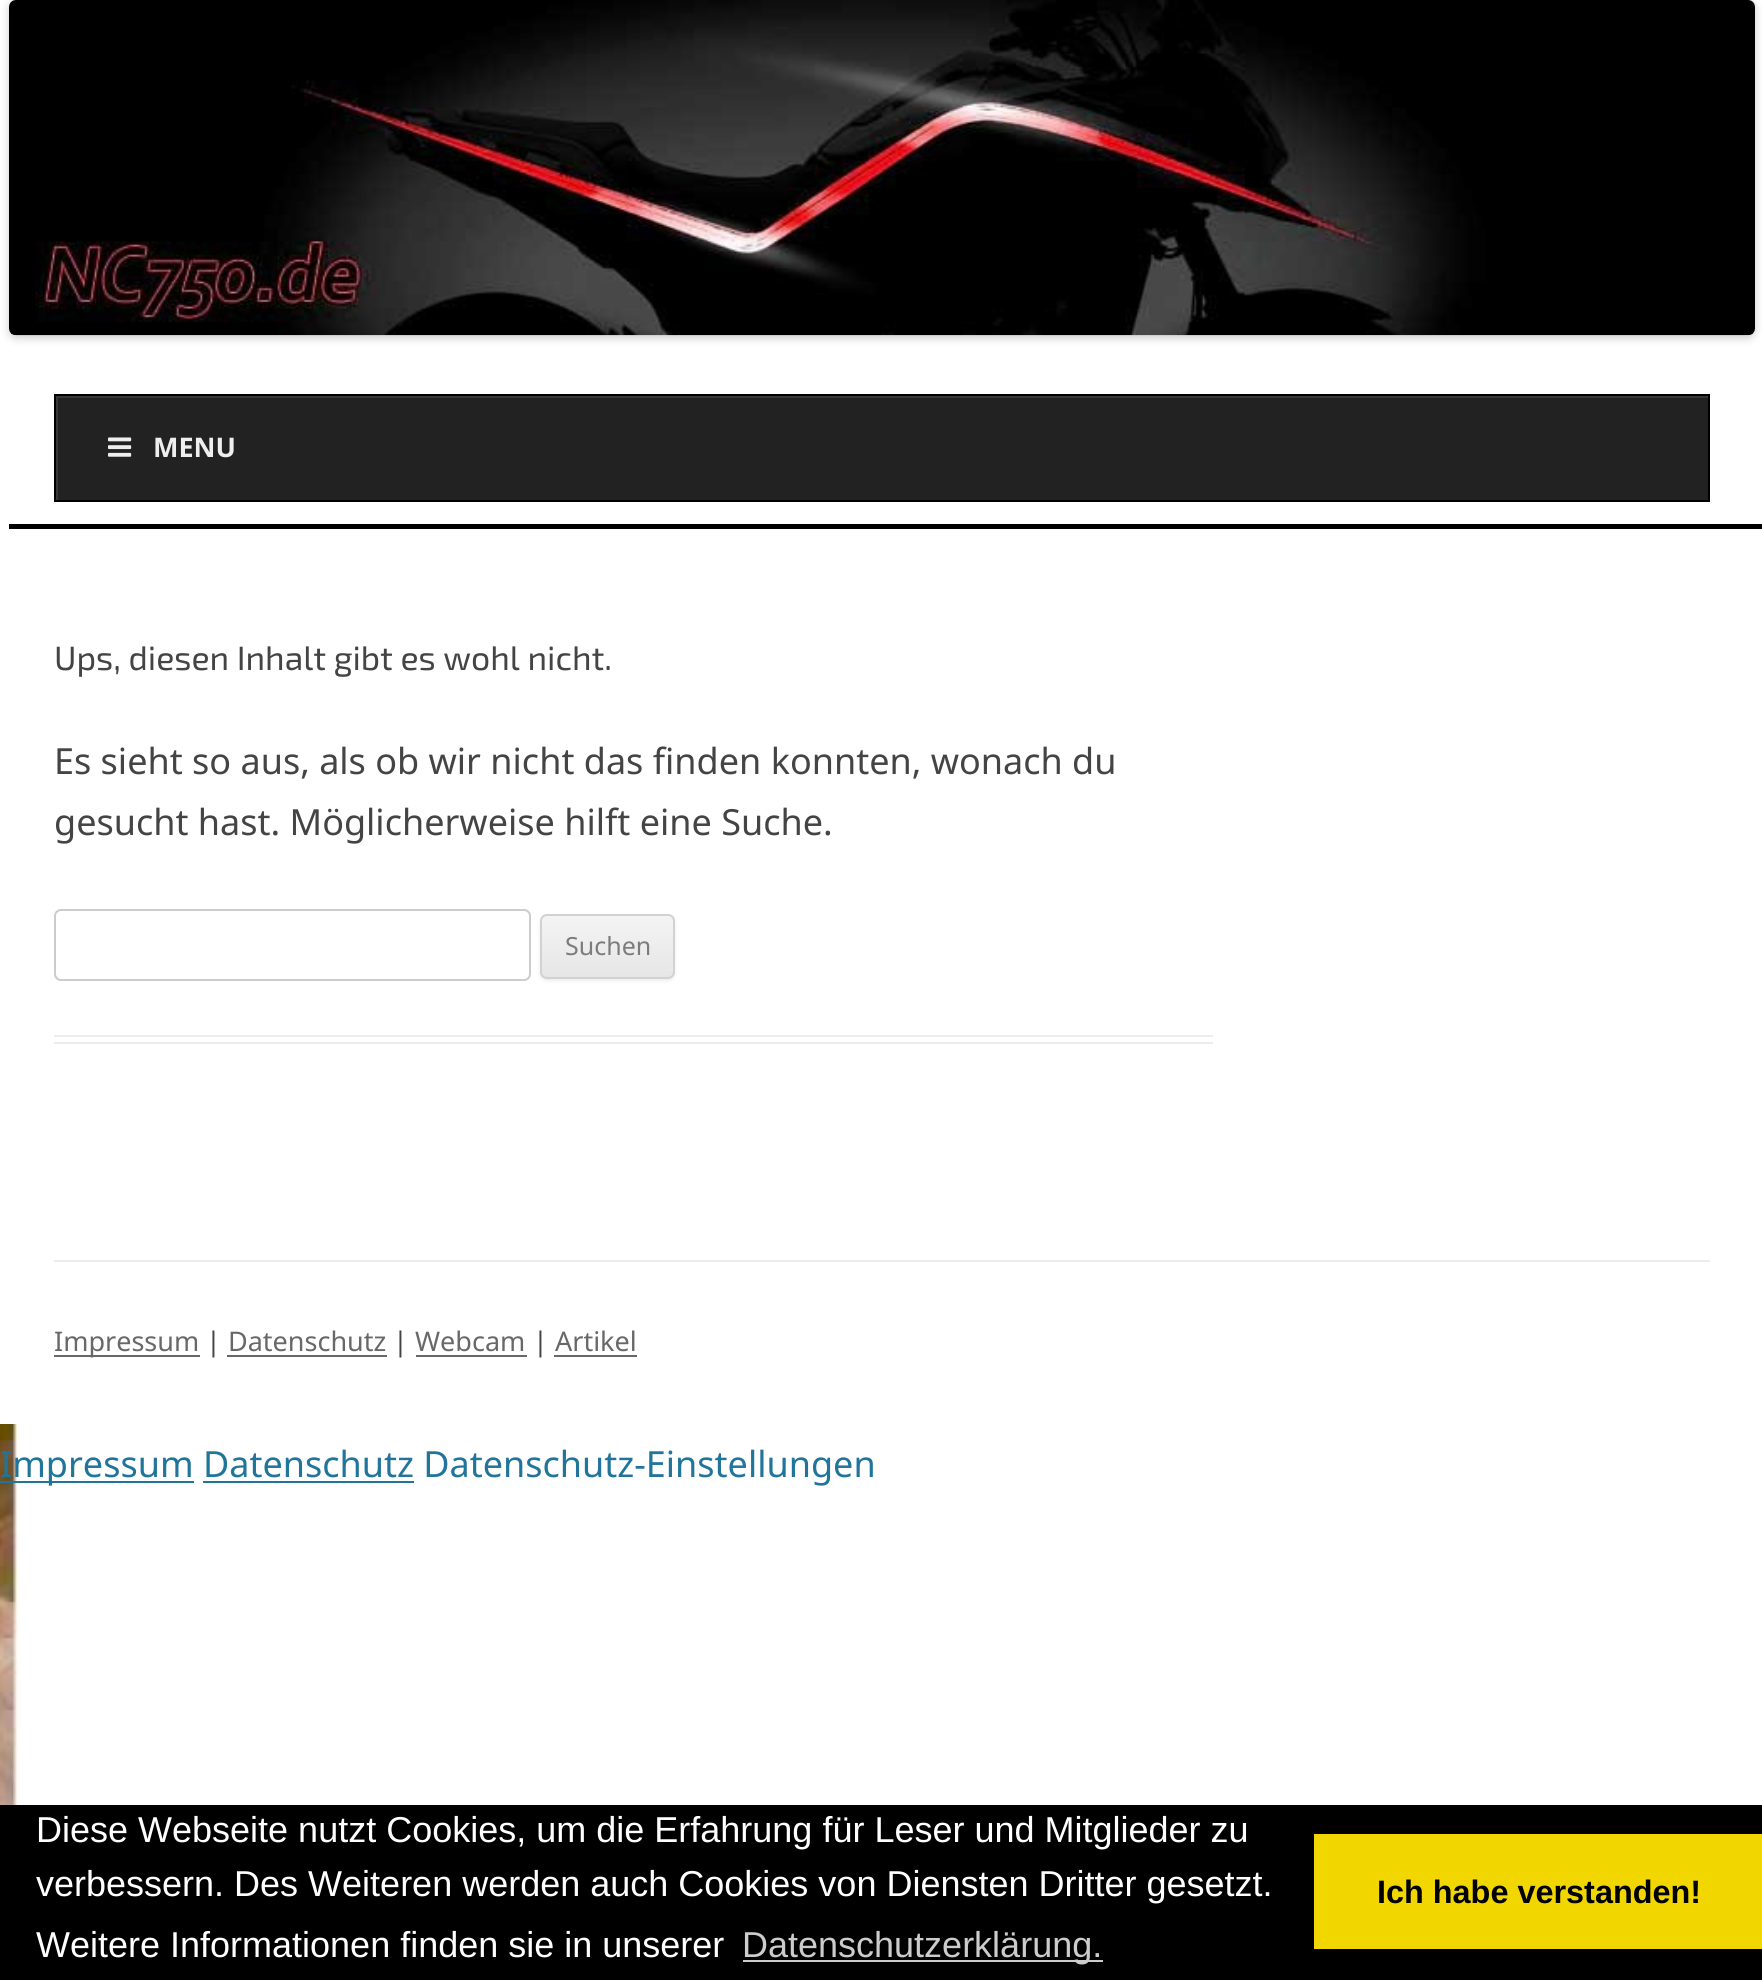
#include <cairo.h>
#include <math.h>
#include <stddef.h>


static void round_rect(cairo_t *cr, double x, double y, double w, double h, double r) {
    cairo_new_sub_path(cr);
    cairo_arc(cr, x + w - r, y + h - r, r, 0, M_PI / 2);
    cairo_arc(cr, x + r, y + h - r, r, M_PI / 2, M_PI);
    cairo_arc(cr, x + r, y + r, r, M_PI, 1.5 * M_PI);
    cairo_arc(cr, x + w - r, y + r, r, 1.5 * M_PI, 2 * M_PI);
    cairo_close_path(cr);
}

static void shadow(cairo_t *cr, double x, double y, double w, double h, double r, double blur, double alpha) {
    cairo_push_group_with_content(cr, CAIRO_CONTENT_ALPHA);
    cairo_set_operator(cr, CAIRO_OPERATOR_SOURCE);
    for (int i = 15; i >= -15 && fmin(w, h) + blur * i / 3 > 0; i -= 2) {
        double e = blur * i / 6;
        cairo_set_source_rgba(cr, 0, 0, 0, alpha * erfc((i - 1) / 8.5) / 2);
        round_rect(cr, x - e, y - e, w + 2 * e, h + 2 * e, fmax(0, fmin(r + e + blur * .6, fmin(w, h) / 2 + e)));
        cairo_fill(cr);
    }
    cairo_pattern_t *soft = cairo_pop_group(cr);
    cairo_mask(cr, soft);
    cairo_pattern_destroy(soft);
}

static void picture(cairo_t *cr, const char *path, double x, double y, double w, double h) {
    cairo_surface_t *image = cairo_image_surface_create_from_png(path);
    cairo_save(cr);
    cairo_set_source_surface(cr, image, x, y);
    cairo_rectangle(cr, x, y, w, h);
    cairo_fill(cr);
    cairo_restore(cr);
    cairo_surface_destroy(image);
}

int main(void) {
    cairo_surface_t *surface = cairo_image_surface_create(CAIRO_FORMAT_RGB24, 1762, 1980);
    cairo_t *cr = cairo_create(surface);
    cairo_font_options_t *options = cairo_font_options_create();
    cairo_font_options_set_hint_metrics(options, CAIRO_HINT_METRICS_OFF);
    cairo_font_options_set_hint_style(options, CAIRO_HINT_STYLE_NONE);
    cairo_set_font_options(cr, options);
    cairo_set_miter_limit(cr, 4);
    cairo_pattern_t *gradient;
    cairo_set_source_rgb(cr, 1, 1, 1);
    cairo_paint(cr);
    picture(cr, "img1.png", 0, 1424, 20, 381);
    cairo_set_source_rgb(cr, 0, 0, 0);
    shadow(cr, 9, 2, 1746, 336, 7, 4.5, 0.2);
    picture(cr, "img2.png", 9, 0, 1746, 336);
    cairo_set_source_rgb(cr, 0.133, 0.133, 0.133);
    cairo_rectangle(cr, 58, 398, 1650, 102);
    cairo_fill(cr);
    cairo_save(cr);
    cairo_rectangle(cr, 56, 396, 1652, 104);
    cairo_clip(cr);
    cairo_set_source_rgb(cr, 0.22, 0.22, 0.22);
    cairo_set_fill_rule(cr, CAIRO_FILL_RULE_EVEN_ODD);
    cairo_new_path(cr);
    cairo_move_to(cr, -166, 173);
    cairo_line_to(cr, 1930, 173);
    cairo_line_to(cr, 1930, 722);
    cairo_line_to(cr, -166, 722);
    cairo_close_path(cr);
    cairo_move_to(cr, 58, 398);
    cairo_line_to(cr, 1710, 398);
    cairo_line_to(cr, 1710, 502);
    cairo_line_to(cr, 58, 502);
    cairo_close_path(cr);
    cairo_fill(cr);
    cairo_restore(cr);
    cairo_rectangle(cr, 55, 395, 1654, 106);
    cairo_set_source_rgb(cr, 0, 0, 0);
    cairo_stroke(cr);
    picture(cr, "img3.png", 108, 437, 24, 20);
    cairo_select_font_face(cr, "Noto Sans", CAIRO_FONT_SLANT_NORMAL, CAIRO_FONT_WEIGHT_BOLD);
    cairo_set_font_size(cr, 27);
    cairo_set_source_rgb(cr, 0.933, 0.933, 0.933);
    cairo_move_to(cr, 153, 457);
    cairo_show_text(cr, "MENU");
    cairo_set_source_rgb(cr, 0, 0, 0);
    cairo_rectangle(cr, 9, 524, 1753, 5);
    cairo_fill(cr);
    cairo_set_source_rgb(cr, 0.929, 0.929, 0.929);
    cairo_rectangle(cr, 54, 1035, 1159, 2);
    cairo_fill(cr);
    cairo_rectangle(cr, 54, 1042, 1159, 2);
    cairo_fill(cr);
    cairo_select_font_face(cr, "Exo 2", CAIRO_FONT_SLANT_NORMAL, CAIRO_FONT_WEIGHT_NORMAL);
    cairo_set_font_size(cr, 33.75);
    cairo_set_source_rgb(cr, 0.267, 0.267, 0.267);
    cairo_move_to(cr, 54, 670);
    cairo_show_text(cr, "Ups, diesen Inhalt gibt es wohl nicht.");
    cairo_select_font_face(cr, "Noto Sans", CAIRO_FONT_SLANT_NORMAL, CAIRO_FONT_WEIGHT_NORMAL);
    cairo_set_font_size(cr, 36);
    cairo_move_to(cr, 54, 774);
    cairo_show_text(cr, "Es sieht so aus, als ob wir nicht das finden konnten, wonach du");
    cairo_move_to(cr, 54, 835);
    cairo_show_text(cr, "gesucht hast. Möglicherweise hilft eine Suche.");
    round_rect(cr, 55, 910, 475, 70, 6);
    cairo_set_source_rgb(cr, 0.8, 0.8, 0.8);
    cairo_stroke(cr);
    cairo_set_source_rgb(cr, 0.251, 0.251, 0.251);
    shadow(cr, 540, 916, 135, 65, 7, 2, 0.1);
    cairo_save(cr);
    round_rect(cr, 540, 914, 135, 65, 7);
    cairo_clip(cr);
    gradient = cairo_pattern_create_linear(608, 916, 608, 977);
    cairo_pattern_add_color_stop_rgba(gradient, 0, 0.957, 0.957, 0.957, 1);
    cairo_pattern_add_color_stop_rgba(gradient, 1, 0.902, 0.902, 0.902, 1);
    cairo_set_source(cr, gradient);
    cairo_pattern_destroy(gradient);
    cairo_rectangle(cr, 540, 916, 135, 61);
    cairo_fill(cr);
    cairo_restore(cr);
    round_rect(cr, 541, 915, 133, 63, 6);
    cairo_set_source_rgb(cr, 0.824, 0.824, 0.824);
    cairo_stroke(cr);
    cairo_set_font_size(cr, 25);
    cairo_set_source_rgb(cr, 0.486, 0.486, 0.486);
    cairo_move_to(cr, 565, 955);
    cairo_show_text(cr, "Suchen");
    cairo_set_source_rgb(cr, 0.929, 0.929, 0.929);
    cairo_rectangle(cr, 54, 1260, 1656, 2);
    cairo_fill(cr);
    cairo_set_source_rgb(cr, 0.408, 0.408, 0.408);
    cairo_rectangle(cr, 54, 1355, 146, 2);
    cairo_fill(cr);
    cairo_set_font_size(cr, 27);
    cairo_move_to(cr, 54, 1351);
    cairo_show_text(cr, "Impressum");
    cairo_set_source_rgb(cr, 0.267, 0.267, 0.267);
    cairo_move_to(cr, 206, 1351);
    cairo_show_text(cr, "|");
    cairo_set_source_rgb(cr, 0.408, 0.408, 0.408);
    cairo_move_to(cr, 228, 1351);
    cairo_show_text(cr, "Datenschutz");
    cairo_rectangle(cr, 227, 1355, 160, 2);
    cairo_fill(cr);
    cairo_set_source_rgb(cr, 0.267, 0.267, 0.267);
    cairo_move_to(cr, 393, 1351);
    cairo_show_text(cr, "|");
    cairo_set_source_rgb(cr, 0.408, 0.408, 0.408);
    cairo_move_to(cr, 415, 1351);
    cairo_show_text(cr, "Webcam");
    cairo_rectangle(cr, 416, 1355, 111, 2);
    cairo_fill(cr);
    cairo_set_source_rgb(cr, 0.267, 0.267, 0.267);
    cairo_move_to(cr, 533, 1351);
    cairo_show_text(cr, "|");
    cairo_set_source_rgb(cr, 0.408, 0.408, 0.408);
    cairo_move_to(cr, 555, 1351);
    cairo_show_text(cr, "Artikel");
    cairo_rectangle(cr, 554, 1355, 83, 2);
    cairo_fill(cr);
    cairo_set_source_rgb(cr, 0.129, 0.459, 0.608);
    cairo_rectangle(cr, 0, 1481, 194, 2);
    cairo_fill(cr);
    cairo_set_font_size(cr, 36);
    cairo_move_to(cr, 0, 1477);
    cairo_show_text(cr, "Impressum Datenschutz Datenschutz-Einstellungen");
    cairo_rectangle(cr, 203, 1481, 211, 2);
    cairo_fill(cr);
    cairo_set_source_rgb(cr, 0, 0, 0);
    cairo_rectangle(cr, 0, 1805, 1762, 175);
    cairo_fill(cr);
    cairo_select_font_face(cr, "Liberation Sans", CAIRO_FONT_SLANT_NORMAL, CAIRO_FONT_WEIGHT_NORMAL);
    cairo_set_source_rgb(cr, 1, 1, 1);
    cairo_move_to(cr, 36, 1842);
    cairo_show_text(cr, "Diese Webseite nutzt Cookies, um die Erfahrung für Leser und Mitglieder zu");
    cairo_move_to(cr, 36, 1896);
    cairo_show_text(cr, "verbessern. Des Weiteren werden auch Cookies von Diensten Dritter gesetzt.");
    cairo_move_to(cr, 36, 1957);
    cairo_show_text(cr, "Weitere Informationen finden sie in unserer");
    cairo_set_source_rgb(cr, 0.8, 0.8, 0.8);
    cairo_rectangle(cr, 743, 1960, 360, 2);
    cairo_fill(cr);
    cairo_move_to(cr, 742, 1957);
    cairo_show_text(cr, "Datenschutzerklärung.");
    cairo_set_source_rgb(cr, 0.945, 0.839, 0);
    cairo_rectangle(cr, 1314, 1834, 448, 115);
    cairo_fill(cr);
    cairo_select_font_face(cr, "Liberation Sans", CAIRO_FONT_SLANT_NORMAL, CAIRO_FONT_WEIGHT_BOLD);
    cairo_set_font_size(cr, 32.4);
    cairo_set_source_rgb(cr, 0, 0, 0);
    cairo_move_to(cr, 1377, 1903);
    cairo_show_text(cr, "Ich habe verstanden!");
    cairo_surface_write_to_png(surface, "page.png");
    cairo_font_options_destroy(options);
    cairo_destroy(cr);
    cairo_surface_destroy(surface);
    return 0;
}
